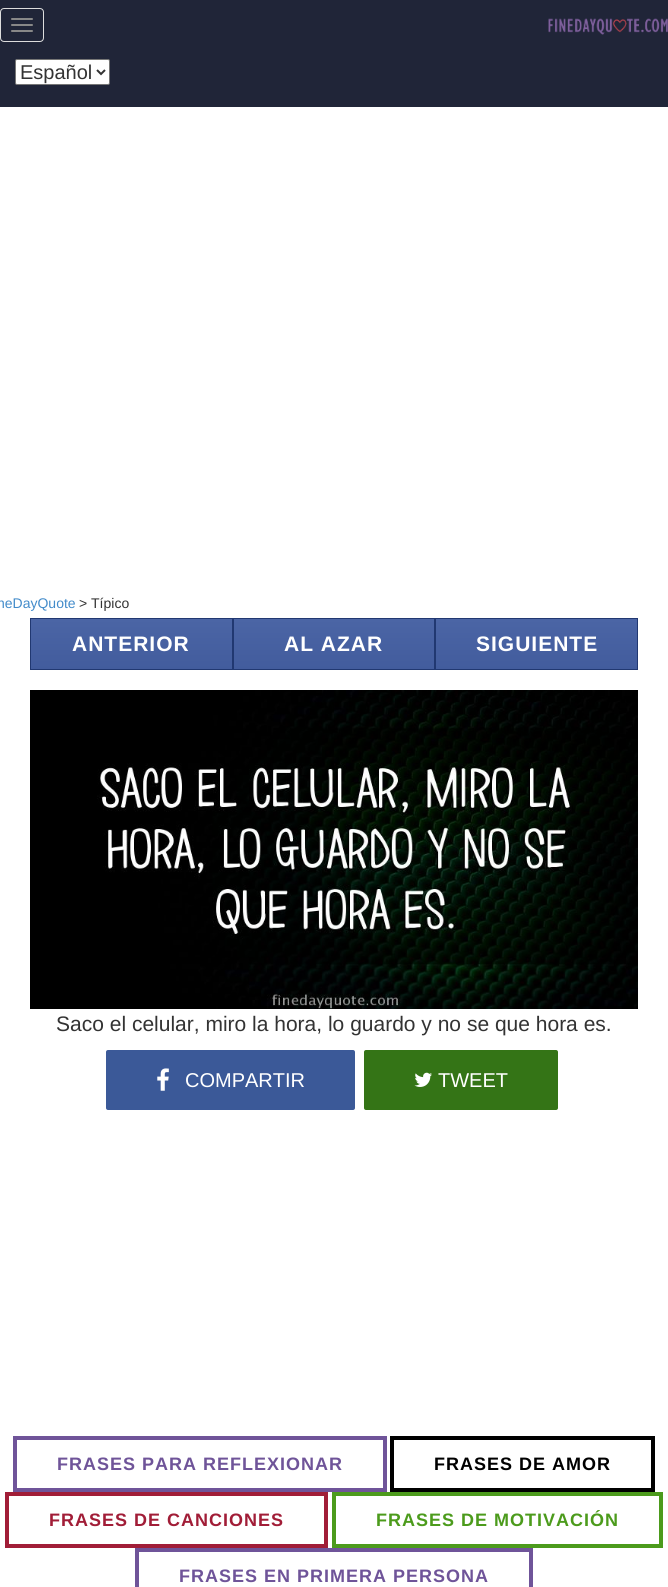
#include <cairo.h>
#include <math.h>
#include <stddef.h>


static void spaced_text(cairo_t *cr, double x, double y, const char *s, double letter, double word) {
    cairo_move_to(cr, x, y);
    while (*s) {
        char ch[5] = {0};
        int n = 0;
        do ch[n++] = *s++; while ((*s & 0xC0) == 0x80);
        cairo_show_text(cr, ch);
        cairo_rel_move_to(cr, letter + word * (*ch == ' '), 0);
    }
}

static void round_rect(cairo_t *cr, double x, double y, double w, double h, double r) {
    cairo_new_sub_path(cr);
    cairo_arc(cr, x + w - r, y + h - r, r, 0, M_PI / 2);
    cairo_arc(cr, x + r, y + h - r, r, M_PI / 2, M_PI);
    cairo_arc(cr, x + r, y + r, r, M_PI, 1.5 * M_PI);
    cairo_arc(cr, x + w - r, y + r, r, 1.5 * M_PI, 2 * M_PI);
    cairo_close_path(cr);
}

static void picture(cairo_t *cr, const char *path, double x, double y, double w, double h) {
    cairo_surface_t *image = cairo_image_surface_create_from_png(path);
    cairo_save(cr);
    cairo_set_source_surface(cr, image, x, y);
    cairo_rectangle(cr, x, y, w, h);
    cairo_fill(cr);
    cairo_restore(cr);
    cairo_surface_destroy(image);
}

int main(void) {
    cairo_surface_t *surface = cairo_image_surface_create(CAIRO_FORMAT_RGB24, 668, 1587);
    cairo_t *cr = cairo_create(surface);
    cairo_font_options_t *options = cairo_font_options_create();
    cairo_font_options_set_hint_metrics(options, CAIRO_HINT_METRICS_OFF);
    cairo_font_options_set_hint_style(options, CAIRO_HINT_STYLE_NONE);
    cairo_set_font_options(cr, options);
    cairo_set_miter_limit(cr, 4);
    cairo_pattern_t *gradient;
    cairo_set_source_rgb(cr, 1, 1, 1);
    cairo_paint(cr);
    cairo_set_source_rgb(cr, 0.125, 0.145, 0.22);
    cairo_rectangle(cr, 0, 0, 668, 107);
    cairo_fill(cr);
    round_rect(cr, 0.5, 8.5, 43, 33, 3.5);
    cairo_set_source_rgb(cr, 0.867, 0.867, 0.867);
    cairo_set_line_width(cr, 1);
    cairo_stroke(cr);
    cairo_set_source_rgb(cr, 0.533, 0.533, 0.533);
    round_rect(cr, 11, 18, 22, 2, 1);
    cairo_fill(cr);
    round_rect(cr, 11, 24, 22, 2, 1);
    cairo_fill(cr);
    round_rect(cr, 11, 30, 22, 2, 1);
    cairo_fill(cr);
    picture(cr, "img1.png", 548, 18, 120, 17);
    cairo_set_source_rgb(cr, 1, 1, 1);
    round_rect(cr, 15.5, 59.5, 94, 25, 1.5);
    cairo_fill_preserve(cr);
    cairo_set_source_rgb(cr, 0.463, 0.463, 0.463);
    cairo_stroke(cr);
    cairo_new_path(cr);
    cairo_move_to(cr, 97, 70);
    cairo_line_to(cr, 101, 74);
    cairo_line_to(cr, 105, 70);
    cairo_set_source_rgb(cr, 0.2, 0.2, 0.2);
    cairo_set_line_width(cr, 2);
    cairo_stroke(cr);
    cairo_select_font_face(cr, "Liberation Sans", CAIRO_FONT_SLANT_NORMAL, CAIRO_FONT_WEIGHT_NORMAL);
    cairo_set_font_size(cr, 20);
    cairo_move_to(cr, 20, 79);
    cairo_show_text(cr, "Español");
    cairo_set_font_size(cr, 14);
    cairo_set_source_rgb(cr, 0.259, 0.545, 0.792);
    cairo_move_to(cr, -3, 608);
    cairo_show_text(cr, "neDayQuote");
    cairo_set_source_rgb(cr, 0.2, 0.2, 0.2);
    cairo_move_to(cr, 79, 608);
    cairo_show_text(cr, "> Típico");
    gradient = cairo_pattern_create_linear(132, 669, 132, 619);
    cairo_pattern_add_color_stop_rgba(gradient, 0, 0.259, 0.361, 0.616, 1);
    cairo_pattern_add_color_stop_rgba(gradient, 1, 0.294, 0.396, 0.647, 1);
    cairo_set_source(cr, gradient);
    cairo_pattern_destroy(gradient);
    cairo_rectangle(cr, 31, 619, 201, 50);
    cairo_fill(cr);
    cairo_rectangle(cr, 30.5, 618.5, 202, 51);
    cairo_set_source_rgb(cr, 0.129, 0.22, 0.443);
    cairo_set_line_width(cr, 1);
    cairo_stroke(cr);
    cairo_select_font_face(cr, "Liberation Sans", CAIRO_FONT_SLANT_NORMAL, CAIRO_FONT_WEIGHT_BOLD);
    cairo_set_font_size(cr, 21);
    cairo_set_source_rgb(cr, 1, 1, 1);
    spaced_text(cr, 72, 651, "ANTERIOR", 1, 0);
    gradient = cairo_pattern_create_linear(334, 669, 334, 619);
    cairo_pattern_add_color_stop_rgba(gradient, 0, 0.259, 0.361, 0.616, 1);
    cairo_pattern_add_color_stop_rgba(gradient, 1, 0.294, 0.396, 0.647, 1);
    cairo_set_source(cr, gradient);
    cairo_pattern_destroy(gradient);
    cairo_rectangle(cr, 234, 619, 200, 50);
    cairo_fill(cr);
    cairo_rectangle(cr, 233.5, 618.5, 201, 51);
    cairo_set_source_rgb(cr, 0.129, 0.22, 0.443);
    cairo_stroke(cr);
    cairo_set_source_rgb(cr, 1, 1, 1);
    spaced_text(cr, 284, 651, "AL AZAR", 1, 0);
    gradient = cairo_pattern_create_linear(537, 669, 537, 619);
    cairo_pattern_add_color_stop_rgba(gradient, 0, 0.259, 0.361, 0.616, 1);
    cairo_pattern_add_color_stop_rgba(gradient, 1, 0.294, 0.396, 0.647, 1);
    cairo_set_source(cr, gradient);
    cairo_pattern_destroy(gradient);
    cairo_rectangle(cr, 436, 619, 201, 50);
    cairo_fill(cr);
    cairo_rectangle(cr, 435.5, 618.5, 202, 51);
    cairo_set_source_rgb(cr, 0.129, 0.22, 0.443);
    cairo_stroke(cr);
    cairo_set_source_rgb(cr, 1, 1, 1);
    spaced_text(cr, 476, 651, "SIGUIENTE", 1, 0);
    picture(cr, "img2.png", 30, 690, 608, 319);
    cairo_select_font_face(cr, "Liberation Sans", CAIRO_FONT_SLANT_NORMAL, CAIRO_FONT_WEIGHT_NORMAL);
    cairo_set_source_rgb(cr, 0.2, 0.2, 0.2);
    cairo_move_to(cr, 56, 1031);
    cairo_show_text(cr, "Saco el celular, miro la hora, lo guardo y no se que hora es.");
    cairo_set_source_rgb(cr, 0.231, 0.349, 0.596);
    round_rect(cr, 106, 1050, 249, 60, 2);
    cairo_fill(cr);
    picture(cr, "img3.png", 157, 1068, 12, 23);
    cairo_set_font_size(cr, 20);
    cairo_set_source_rgb(cr, 1, 1, 1);
    cairo_move_to(cr, 185, 1087);
    cairo_show_text(cr, "COMPARTIR");
    cairo_set_source_rgb(cr, 0.204, 0.455, 0.086);
    round_rect(cr, 364, 1050, 194, 60, 2);
    cairo_fill(cr);
    picture(cr, "img4.png", 414, 1072, 18, 15);
    cairo_set_source_rgb(cr, 1, 1, 1);
    cairo_move_to(cr, 438, 1087);
    cairo_show_text(cr, "TWEET");
    cairo_rectangle(cr, 15, 1438, 370, 52);
    cairo_set_source_rgb(cr, 0.435, 0.329, 0.6);
    cairo_set_line_width(cr, 4);
    cairo_stroke(cr);
    cairo_select_font_face(cr, "Liberation Sans", CAIRO_FONT_SLANT_NORMAL, CAIRO_FONT_WEIGHT_BOLD);
    cairo_set_font_size(cr, 18);
    spaced_text(cr, 57, 1470, "FRASES PARA REFLEXIONAR", 1, 0);
    cairo_rectangle(cr, 392, 1438, 261, 52);
    cairo_set_source_rgb(cr, 0, 0, 0);
    cairo_stroke(cr);
    spaced_text(cr, 434, 1470, "FRASES DE AMOR", 1, 0);
    cairo_rectangle(cr, 7, 1494, 319, 52);
    cairo_set_source_rgb(cr, 0.631, 0.114, 0.216);
    cairo_stroke(cr);
    spaced_text(cr, 49, 1526, "FRASES DE CANCIONES", 1, 0);
    cairo_rectangle(cr, 334, 1494, 327, 52);
    cairo_set_source_rgb(cr, 0.298, 0.608, 0.11);
    cairo_stroke(cr);
    spaced_text(cr, 376, 1526, "FRASES DE MOTIVACIÓN", 1, 0);
    cairo_rectangle(cr, 137, 1550, 394, 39);
    cairo_set_source_rgb(cr, 0.435, 0.329, 0.6);
    cairo_stroke(cr);
    spaced_text(cr, 179, 1582, "FRASES EN PRIMERA PERSONA", 1, 0);
    cairo_surface_write_to_png(surface, "page.png");
    cairo_font_options_destroy(options);
    cairo_destroy(cr);
    cairo_surface_destroy(surface);
    return 0;
}
